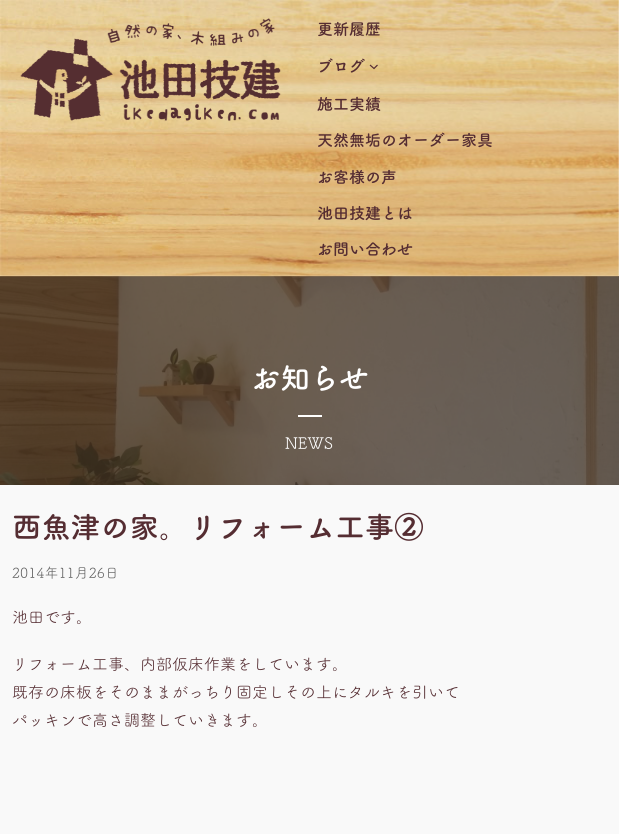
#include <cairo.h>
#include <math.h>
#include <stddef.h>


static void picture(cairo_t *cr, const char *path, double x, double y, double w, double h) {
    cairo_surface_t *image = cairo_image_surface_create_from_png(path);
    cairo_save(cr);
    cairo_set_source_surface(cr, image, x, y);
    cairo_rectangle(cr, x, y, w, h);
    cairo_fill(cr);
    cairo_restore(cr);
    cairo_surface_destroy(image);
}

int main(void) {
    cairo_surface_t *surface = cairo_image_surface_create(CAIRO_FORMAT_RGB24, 619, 834);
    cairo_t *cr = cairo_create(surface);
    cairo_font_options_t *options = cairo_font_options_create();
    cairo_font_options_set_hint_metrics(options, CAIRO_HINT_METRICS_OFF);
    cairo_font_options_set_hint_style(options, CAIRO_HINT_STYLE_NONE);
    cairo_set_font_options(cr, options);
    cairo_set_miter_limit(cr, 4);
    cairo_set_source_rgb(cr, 0.976, 0.976, 0.976);
    cairo_paint(cr);
    picture(cr, "img3.png", 0, 276, 619, 209);
    picture(cr, "img1.png", 0, 0, 619, 277);
    picture(cr, "img2.png", 20, 18, 261, 103);
    cairo_select_font_face(cr, "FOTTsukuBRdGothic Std", CAIRO_FONT_SLANT_NORMAL, CAIRO_FONT_WEIGHT_BOLD);
    cairo_set_font_size(cr, 16);
    cairo_set_source_rgb(cr, 0.333, 0.176, 0.196);
    cairo_move_to(cr, 317, 35);
    cairo_show_text(cr, "更新履歴");
    cairo_move_to(cr, 317, 72);
    cairo_show_text(cr, "ブログ");
    cairo_new_path(cr);
    cairo_move_to(cr, 370, 65);
    cairo_line_to(cr, 374, 68.5);
    cairo_line_to(cr, 377.5, 65);
    cairo_set_line_width(cr, 1.2);
    cairo_stroke(cr);
    cairo_move_to(cr, 317, 110);
    cairo_show_text(cr, "施工実績");
    cairo_move_to(cr, 317, 146);
    cairo_show_text(cr, "天然無垢のオーダー家具");
    cairo_move_to(cr, 317, 183);
    cairo_show_text(cr, "お客様の声");
    cairo_move_to(cr, 317, 219);
    cairo_show_text(cr, "池田技建とは");
    cairo_move_to(cr, 317, 255);
    cairo_show_text(cr, "お問い合わせ");
    cairo_set_font_size(cr, 29.4);
    cairo_set_source_rgb(cr, 1, 1, 1);
    cairo_move_to(cr, 251, 389);
    cairo_show_text(cr, "お知らせ");
    cairo_rectangle(cr, 298, 415, 24, 2);
    cairo_fill(cr);
    cairo_select_font_face(cr, "FOTTsukuBRdGothic Std", CAIRO_FONT_SLANT_NORMAL, CAIRO_FONT_WEIGHT_NORMAL);
    cairo_set_font_size(cr, 16);
    cairo_move_to(cr, 285, 449);
    cairo_show_text(cr, "NEWS");
    cairo_select_font_face(cr, "FOTTsukuBRdGothic Std", CAIRO_FONT_SLANT_NORMAL, CAIRO_FONT_WEIGHT_BOLD);
    cairo_set_font_size(cr, 29.4);
    cairo_set_source_rgb(cr, 0.333, 0.176, 0.196);
    cairo_move_to(cr, 12, 538);
    cairo_show_text(cr, "西魚津の家。リフォーム工事②");
    cairo_select_font_face(cr, "FOTTsukuBRdGothic Std", CAIRO_FONT_SLANT_NORMAL, CAIRO_FONT_WEIGHT_NORMAL);
    cairo_set_font_size(cr, 14);
    cairo_set_source_rgb(cr, 0.388, 0.388, 0.388);
    cairo_move_to(cr, 12, 578);
    cairo_show_text(cr, "2014年11月26日");
    cairo_set_font_size(cr, 16);
    cairo_set_source_rgb(cr, 0.333, 0.176, 0.196);
    cairo_move_to(cr, 12, 623);
    cairo_show_text(cr, "池田です。");
    cairo_move_to(cr, 12, 670);
    cairo_show_text(cr, "リフォーム工事、内部仮床作業をしています。");
    cairo_move_to(cr, 12, 698);
    cairo_show_text(cr, "既存の床板をそのままがっちり固定しその上にタルキを引いて");
    cairo_move_to(cr, 12, 726);
    cairo_show_text(cr, "パッキンで高さ調整していきます。");
    cairo_surface_write_to_png(surface, "page.png");
    cairo_font_options_destroy(options);
    cairo_destroy(cr);
    cairo_surface_destroy(surface);
    return 0;
}
